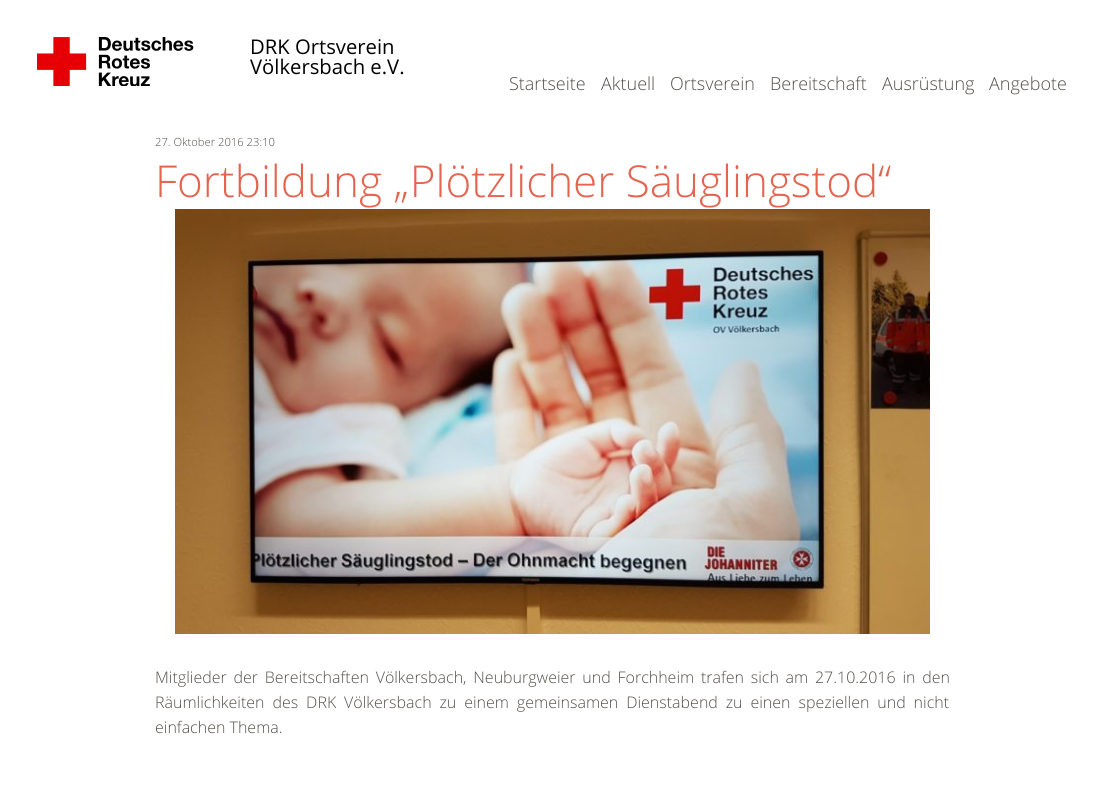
#include <cairo.h>
#include <math.h>
#include <stddef.h>


static void spaced_text(cairo_t *cr, double x, double y, const char *s, double letter, double word) {
    cairo_move_to(cr, x, y);
    while (*s) {
        char ch[5] = {0};
        int n = 0;
        do ch[n++] = *s++; while ((*s & 0xC0) == 0x80);
        cairo_show_text(cr, ch);
        cairo_rel_move_to(cr, letter + word * (*ch == ' '), 0);
    }
}

static void picture(cairo_t *cr, const char *path, double x, double y, double w, double h) {
    cairo_surface_t *image = cairo_image_surface_create_from_png(path);
    cairo_save(cr);
    cairo_set_source_surface(cr, image, x, y);
    cairo_rectangle(cr, x, y, w, h);
    cairo_fill(cr);
    cairo_restore(cr);
    cairo_surface_destroy(image);
}

int main(void) {
    cairo_surface_t *surface = cairo_image_surface_create(CAIRO_FORMAT_RGB24, 1105, 790);
    cairo_t *cr = cairo_create(surface);
    cairo_font_options_t *options = cairo_font_options_create();
    cairo_font_options_set_hint_metrics(options, CAIRO_HINT_METRICS_OFF);
    cairo_font_options_set_hint_style(options, CAIRO_HINT_STYLE_NONE);
    cairo_set_font_options(cr, options);
    cairo_set_miter_limit(cr, 4);
    cairo_set_source_rgb(cr, 1, 1, 1);
    cairo_paint(cr);
    picture(cr, "img1.png", 37, 37, 157, 49);
    cairo_select_font_face(cr, "Open Sans", CAIRO_FONT_SLANT_NORMAL, CAIRO_FONT_WEIGHT_NORMAL);
    cairo_set_font_size(cr, 20.25);
    cairo_set_source_rgb(cr, 0, 0, 0);
    cairo_move_to(cr, 250, 54);
    cairo_show_text(cr, "DRK Ortsverein");
    cairo_move_to(cr, 250, 74);
    cairo_show_text(cr, "Völkersbach e.V.");
    cairo_select_font_face(cr, "Open Sans Light", CAIRO_FONT_SLANT_NORMAL, CAIRO_FONT_WEIGHT_NORMAL);
    cairo_set_font_size(cr, 18);
    cairo_set_source_rgb(cr, 0.333, 0.31, 0.29);
    cairo_move_to(cr, 509, 90);
    cairo_show_text(cr, "Startseite");
    cairo_move_to(cr, 601, 90);
    cairo_show_text(cr, "Aktuell");
    cairo_move_to(cr, 670, 90);
    cairo_show_text(cr, "Ortsverein");
    cairo_move_to(cr, 770, 90);
    cairo_show_text(cr, "Bereitschaft");
    cairo_move_to(cr, 882, 90);
    cairo_show_text(cr, "Ausrüstung");
    cairo_move_to(cr, 989, 90);
    cairo_show_text(cr, "Angebote");
    cairo_set_font_size(cr, 11.25);
    cairo_move_to(cr, 155, 146);
    cairo_show_text(cr, "27. Oktober 2016 23:10");
    cairo_set_font_size(cr, 44);
    cairo_set_source_rgb(cr, 0.894, 0.392, 0.314);
    cairo_move_to(cr, 155, 197);
    cairo_show_text(cr, "Fortbildung „Plötzlicher Säuglingstod“");
    picture(cr, "img2.png", 175, 209, 755, 425);
    cairo_set_font_size(cr, 16);
    cairo_set_source_rgb(cr, 0.333, 0.31, 0.29);
    spaced_text(cr, 155, 683, "Mitglieder der Bereitschaften Völkersbach, Neuburgweier und Forchheim trafen sich am 27.10.2016 in den", 0, 2.6);
    spaced_text(cr, 155, 708, "Räumlichkeiten des DRK Völkersbach zu einem gemeinsamen Dienstabend zu einen speziellen und nicht", 0, 3.75);
    cairo_move_to(cr, 155, 733);
    cairo_show_text(cr, "einfachen Thema.");
    cairo_surface_write_to_png(surface, "page.png");
    cairo_font_options_destroy(options);
    cairo_destroy(cr);
    cairo_surface_destroy(surface);
    return 0;
}
